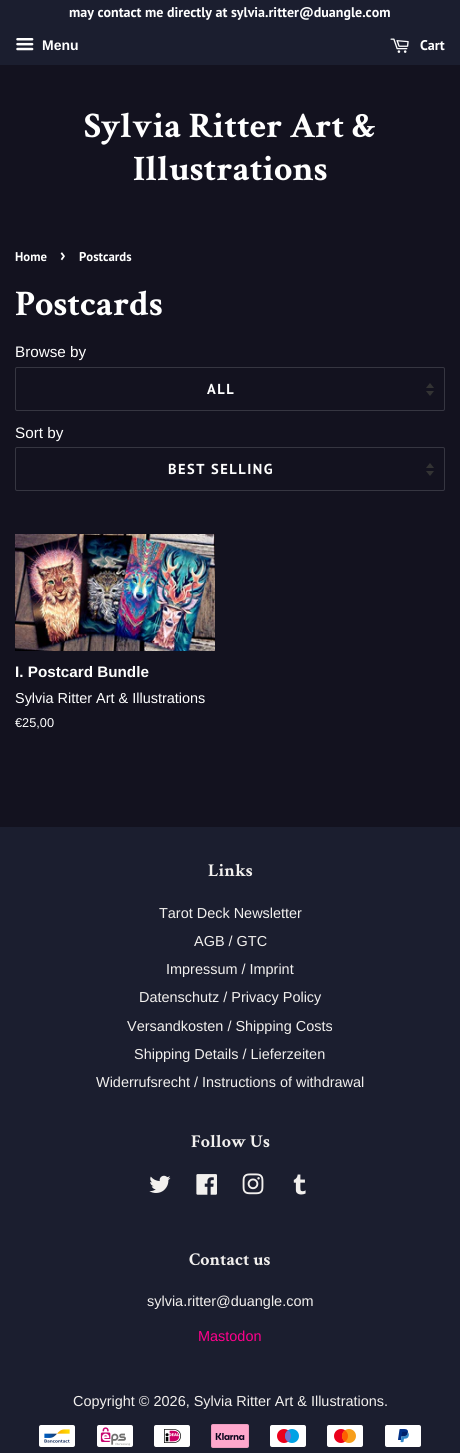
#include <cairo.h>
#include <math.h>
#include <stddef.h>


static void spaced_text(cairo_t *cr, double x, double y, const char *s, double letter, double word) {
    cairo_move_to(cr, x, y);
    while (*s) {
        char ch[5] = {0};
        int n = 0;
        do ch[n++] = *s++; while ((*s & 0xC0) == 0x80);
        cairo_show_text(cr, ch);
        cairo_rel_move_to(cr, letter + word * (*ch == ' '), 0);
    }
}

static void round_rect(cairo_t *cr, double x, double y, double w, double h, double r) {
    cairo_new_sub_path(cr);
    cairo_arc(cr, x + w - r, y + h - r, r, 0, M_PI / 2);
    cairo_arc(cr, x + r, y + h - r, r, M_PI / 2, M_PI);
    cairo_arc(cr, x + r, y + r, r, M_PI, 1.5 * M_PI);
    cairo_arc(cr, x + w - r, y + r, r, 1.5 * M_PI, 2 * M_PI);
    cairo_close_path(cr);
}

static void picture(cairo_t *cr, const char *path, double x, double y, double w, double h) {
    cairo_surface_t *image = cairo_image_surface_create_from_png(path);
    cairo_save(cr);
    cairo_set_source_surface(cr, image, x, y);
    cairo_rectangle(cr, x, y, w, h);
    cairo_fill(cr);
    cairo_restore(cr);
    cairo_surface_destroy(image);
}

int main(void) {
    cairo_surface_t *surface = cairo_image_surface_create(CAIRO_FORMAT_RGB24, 460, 1453);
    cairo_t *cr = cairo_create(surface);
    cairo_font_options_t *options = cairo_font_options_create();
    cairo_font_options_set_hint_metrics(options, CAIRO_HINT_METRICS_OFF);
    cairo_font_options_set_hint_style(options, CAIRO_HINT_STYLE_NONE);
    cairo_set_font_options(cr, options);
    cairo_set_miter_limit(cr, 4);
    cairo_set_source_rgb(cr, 0.075, 0.071, 0.122);
    cairo_paint(cr);
    cairo_set_source_rgb(cr, 0.106, 0.118, 0.184);
    cairo_rectangle(cr, 0, 0, 460, 65);
    cairo_fill(cr);
    cairo_select_font_face(cr, "PT Sans", CAIRO_FONT_SLANT_NORMAL, CAIRO_FONT_WEIGHT_BOLD);
    cairo_set_font_size(cr, 14);
    cairo_set_source_rgb(cr, 1, 1, 1);
    cairo_move_to(cr, 69, 17);
    cairo_show_text(cr, "may contact me directly at sylvia.ritter@duangle.com");
    picture(cr, "img1.png", 16, 38, 18, 13);
    cairo_select_font_face(cr, "Liberation Sans", CAIRO_FONT_SLANT_NORMAL, CAIRO_FONT_WEIGHT_BOLD);
    cairo_move_to(cr, 42, 50);
    cairo_show_text(cr, "Menu");
    picture(cr, "img2.png", 390, 38, 19, 15);
    cairo_select_font_face(cr, "PT Sans", CAIRO_FONT_SLANT_NORMAL, CAIRO_FONT_WEIGHT_BOLD);
    cairo_move_to(cr, 420, 50);
    cairo_show_text(cr, "Cart");
    cairo_select_font_face(cr, "Crimson Text", CAIRO_FONT_SLANT_NORMAL, CAIRO_FONT_WEIGHT_BOLD);
    cairo_set_font_size(cr, 36);
    cairo_move_to(cr, 84, 137);
    cairo_show_text(cr, "Sylvia Ritter Art &");
    cairo_move_to(cr, 133, 180);
    cairo_show_text(cr, "Illustrations");
    cairo_select_font_face(cr, "PT Sans", CAIRO_FONT_SLANT_NORMAL, CAIRO_FONT_WEIGHT_BOLD);
    cairo_set_font_size(cr, 12.75);
    cairo_move_to(cr, 15, 261);
    cairo_show_text(cr, "Home");
    cairo_set_font_size(cr, 18);
    cairo_move_to(cr, 60, 261);
    cairo_show_text(cr, "›");
    cairo_set_font_size(cr, 12.75);
    cairo_move_to(cr, 79, 261);
    cairo_show_text(cr, "Postcards");
    cairo_select_font_face(cr, "Crimson Text", CAIRO_FONT_SLANT_NORMAL, CAIRO_FONT_WEIGHT_BOLD);
    cairo_set_font_size(cr, 36);
    cairo_move_to(cr, 15, 315);
    cairo_show_text(cr, "Postcards");
    cairo_select_font_face(cr, "Liberation Sans", CAIRO_FONT_SLANT_NORMAL, CAIRO_FONT_WEIGHT_NORMAL);
    cairo_set_font_size(cr, 15.25);
    cairo_move_to(cr, 15, 357);
    cairo_show_text(cr, "Browse by");
    picture(cr, "img3.png", 426, 383, 8, 13);
    round_rect(cr, 15.5, 367.5, 429, 43, 1.5);
    cairo_set_source_rgb(cr, 0.212, 0.212, 0.255);
    cairo_set_line_width(cr, 1);
    cairo_stroke(cr);
    cairo_select_font_face(cr, "PT Sans", CAIRO_FONT_SLANT_NORMAL, CAIRO_FONT_WEIGHT_BOLD);
    cairo_set_font_size(cr, 14.45);
    cairo_set_source_rgb(cr, 1, 1, 1);
    spaced_text(cr, 207, 394, "ALL", 1.5, 0);
    cairo_select_font_face(cr, "Liberation Sans", CAIRO_FONT_SLANT_NORMAL, CAIRO_FONT_WEIGHT_NORMAL);
    cairo_set_font_size(cr, 15.25);
    cairo_move_to(cr, 15, 438);
    cairo_show_text(cr, "Sort by");
    picture(cr, "img3.png", 426, 463, 8, 13);
    round_rect(cr, 15.5, 447.5, 429, 43, 1.5);
    cairo_set_source_rgb(cr, 0.212, 0.212, 0.255);
    cairo_stroke(cr);
    cairo_select_font_face(cr, "PT Sans", CAIRO_FONT_SLANT_NORMAL, CAIRO_FONT_WEIGHT_BOLD);
    cairo_set_font_size(cr, 14.45);
    cairo_set_source_rgb(cr, 1, 1, 1);
    spaced_text(cr, 168, 474, "BEST SELLING", 1.5, 0);
    picture(cr, "img4.png", 15, 534, 200, 117);
    cairo_select_font_face(cr, "Liberation Sans", CAIRO_FONT_SLANT_NORMAL, CAIRO_FONT_WEIGHT_BOLD);
    cairo_set_font_size(cr, 15.25);
    cairo_move_to(cr, 15, 677);
    cairo_show_text(cr, "I. Postcard Bundle");
    cairo_select_font_face(cr, "Liberation Sans", CAIRO_FONT_SLANT_NORMAL, CAIRO_FONT_WEIGHT_NORMAL);
    cairo_set_font_size(cr, 14.45);
    cairo_move_to(cr, 15, 703);
    cairo_show_text(cr, "Sylvia Ritter Art & Illustrations");
    cairo_set_font_size(cr, 12.75);
    cairo_move_to(cr, 15, 727);
    cairo_show_text(cr, "€25,00");
    cairo_set_source_rgb(cr, 0.106, 0.118, 0.184);
    cairo_rectangle(cr, 0, 827, 460, 626);
    cairo_fill(cr);
    cairo_select_font_face(cr, "Crimson Text", CAIRO_FONT_SLANT_NORMAL, CAIRO_FONT_WEIGHT_BOLD);
    cairo_set_font_size(cr, 18);
    cairo_set_source_rgb(cr, 0.949, 0.941, 0.933);
    cairo_move_to(cr, 208, 876);
    cairo_show_text(cr, "Links");
    cairo_select_font_face(cr, "Liberation Sans", CAIRO_FONT_SLANT_NORMAL, CAIRO_FONT_WEIGHT_NORMAL);
    cairo_set_font_size(cr, 14.45);
    cairo_move_to(cr, 159, 918);
    cairo_show_text(cr, "Tarot Deck Newsletter");
    cairo_move_to(cr, 194, 946);
    cairo_show_text(cr, "AGB / GTC");
    cairo_move_to(cr, 166, 974);
    cairo_show_text(cr, "Impressum / Imprint");
    cairo_move_to(cr, 139, 1002);
    cairo_show_text(cr, "Datenschutz / Privacy Policy");
    cairo_move_to(cr, 127, 1031);
    cairo_show_text(cr, "Versandkosten / Shipping Costs");
    cairo_move_to(cr, 134, 1059);
    cairo_show_text(cr, "Shipping Details / Lieferzeiten");
    cairo_move_to(cr, 96, 1087);
    cairo_show_text(cr, "Widerrufsrecht / Instructions of withdrawal");
    cairo_select_font_face(cr, "Crimson Text", CAIRO_FONT_SLANT_NORMAL, CAIRO_FONT_WEIGHT_BOLD);
    cairo_set_font_size(cr, 18);
    cairo_move_to(cr, 191, 1147);
    cairo_show_text(cr, "Follow Us");
    picture(cr, "img5.png", 149, 1175, 22, 18);
    picture(cr, "img6.png", 196, 1174, 21, 21);
    picture(cr, "img7.png", 242, 1173, 22, 22);
    picture(cr, "img8.png", 293, 1174, 13, 21);
    cairo_move_to(cr, 189, 1265);
    cairo_show_text(cr, "Contact us");
    cairo_select_font_face(cr, "Liberation Sans", CAIRO_FONT_SLANT_NORMAL, CAIRO_FONT_WEIGHT_NORMAL);
    cairo_set_font_size(cr, 14.45);
    cairo_move_to(cr, 147, 1306);
    cairo_show_text(cr, "sylvia.ritter@duangle.com");
    cairo_set_source_rgb(cr, 1, 0, 0.549);
    cairo_move_to(cr, 198, 1341);
    cairo_show_text(cr, "Mastodon");
    cairo_set_source_rgb(cr, 0.949, 0.941, 0.933);
    cairo_move_to(cr, 73, 1406);
    cairo_show_text(cr, "Copyright © 2026, Sylvia Ritter Art & Illustrations.");
    picture(cr, "img9.png", 39, 1425, 36, 22);
    picture(cr, "img10.png", 97, 1425, 36, 22);
    picture(cr, "img11.png", 154, 1425, 36, 22);
    picture(cr, "img12.png", 211, 1424, 38, 24);
    picture(cr, "img13.png", 270, 1425, 36, 22);
    picture(cr, "img14.png", 327, 1425, 36, 22);
    picture(cr, "img15.png", 385, 1425, 36, 22);
    cairo_surface_write_to_png(surface, "page.png");
    cairo_font_options_destroy(options);
    cairo_destroy(cr);
    cairo_surface_destroy(surface);
    return 0;
}
